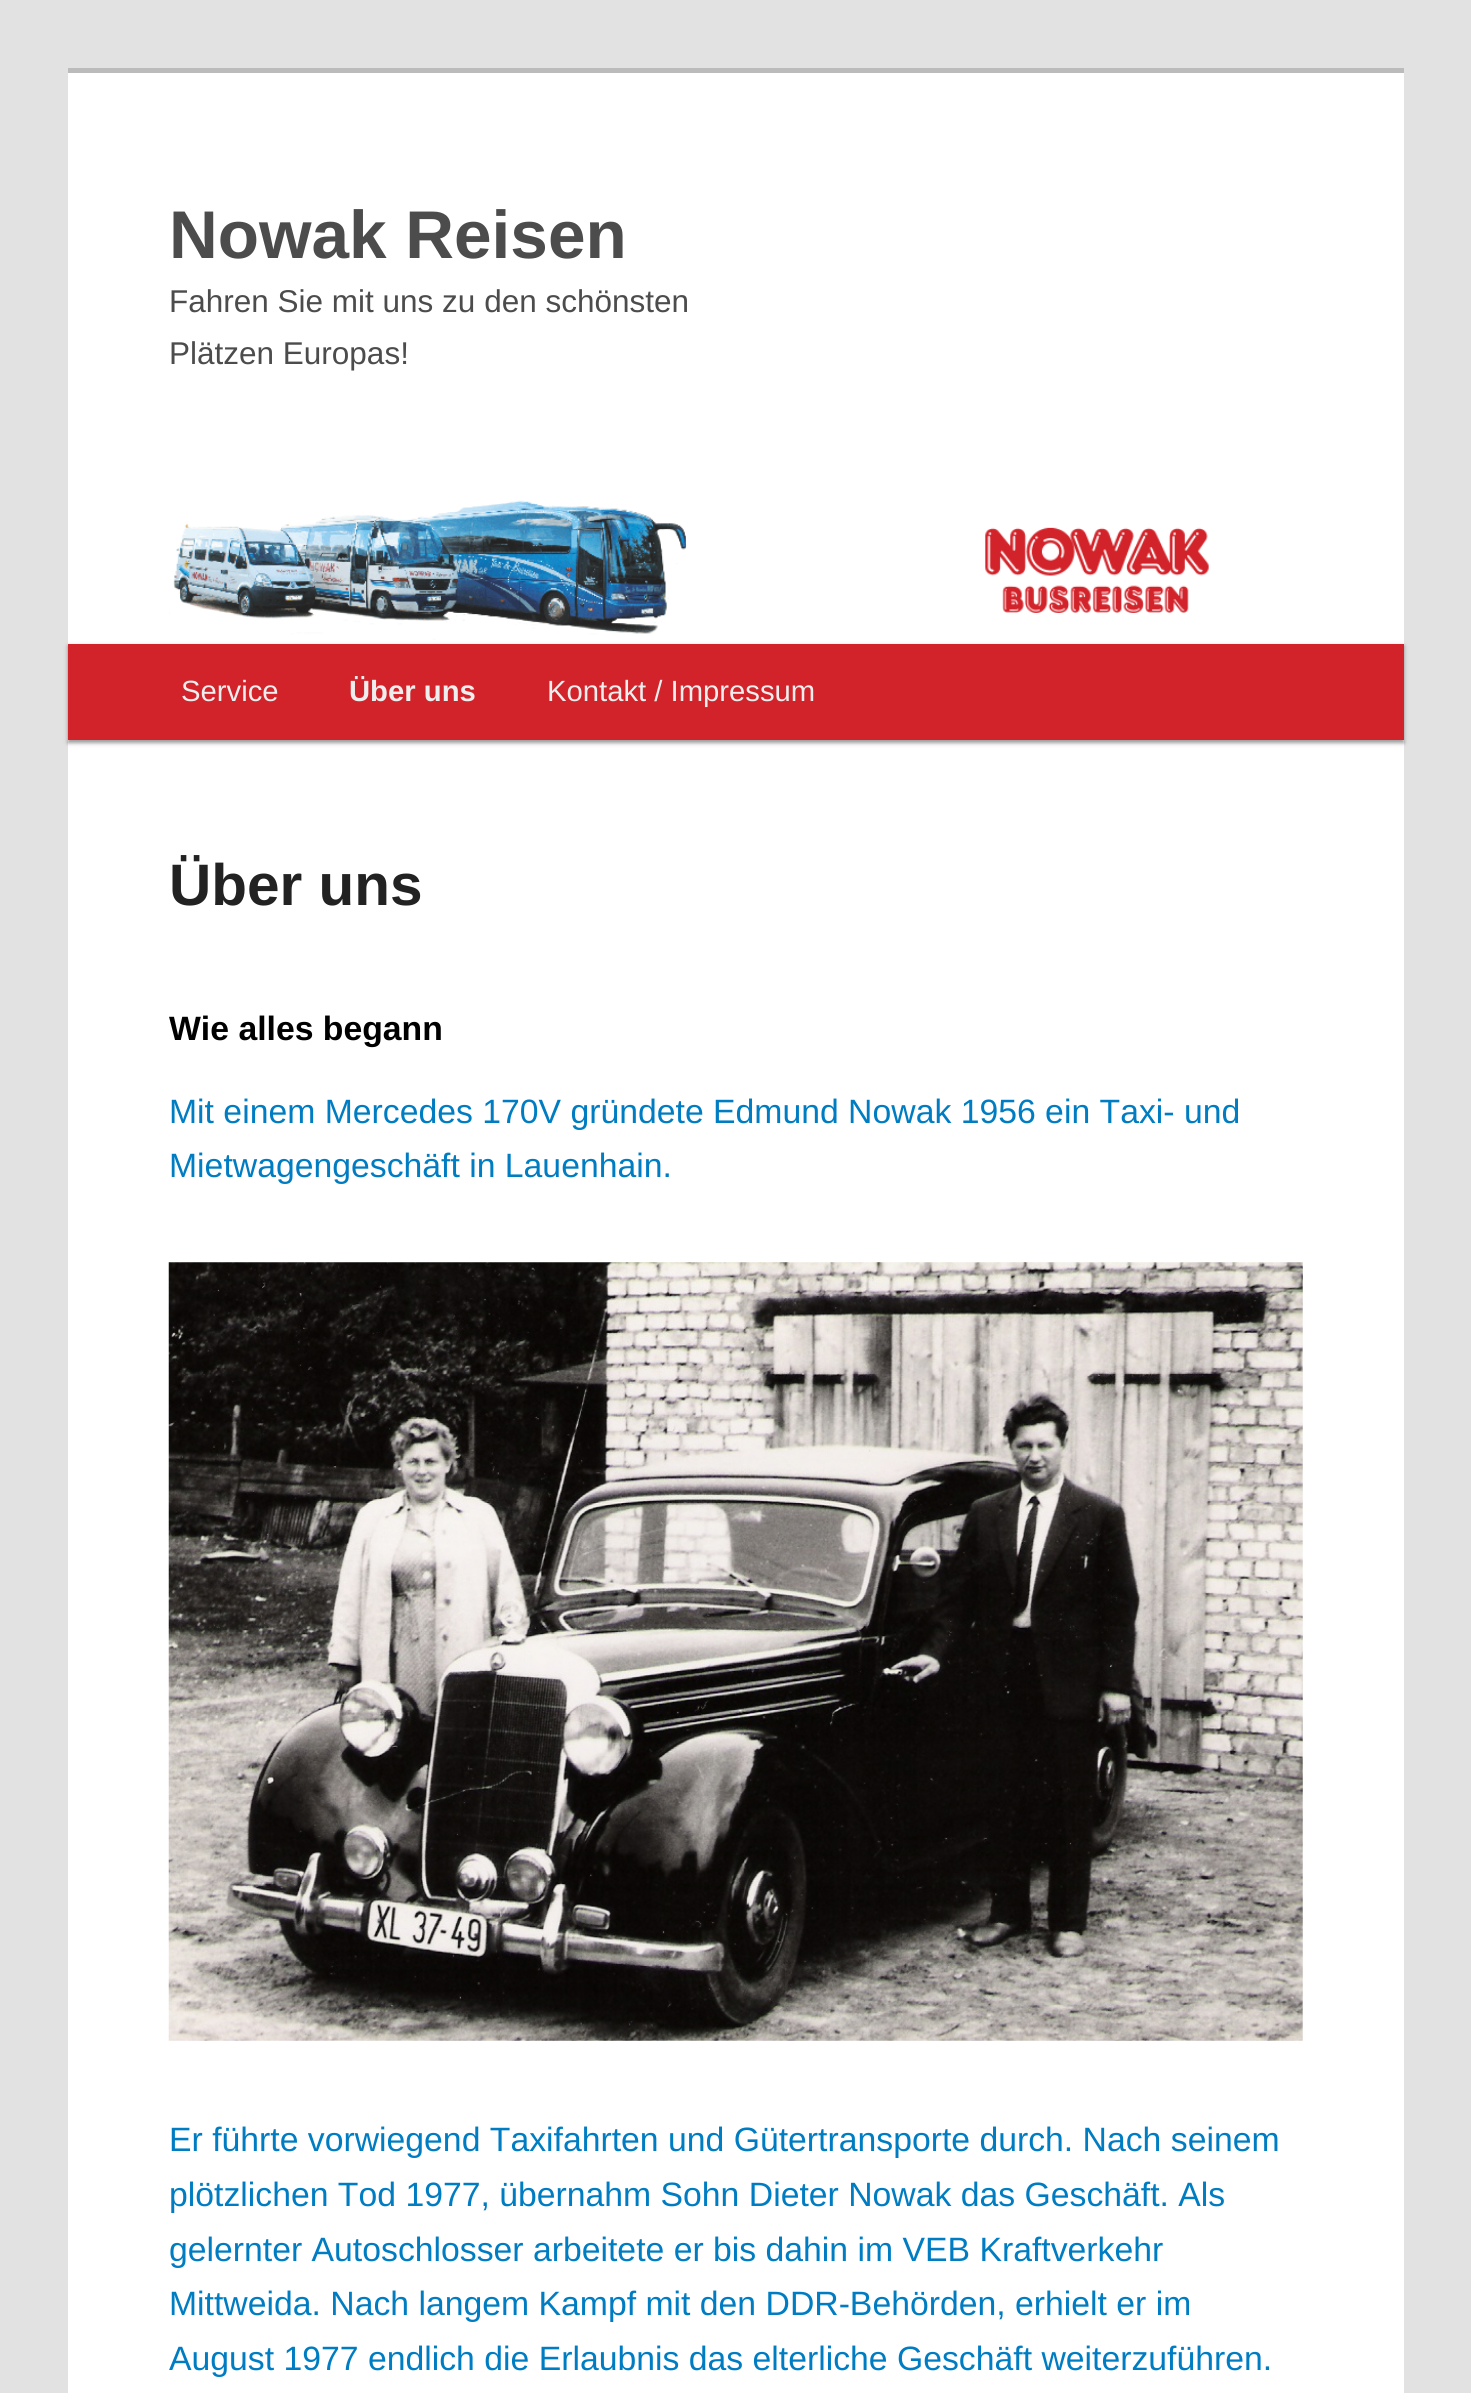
#include <cairo.h>
#include <math.h>
#include <stddef.h>


static void round_rect(cairo_t *cr, double x, double y, double w, double h, double r) {
    cairo_new_sub_path(cr);
    cairo_arc(cr, x + w - r, y + h - r, r, 0, M_PI / 2);
    cairo_arc(cr, x + r, y + h - r, r, M_PI / 2, M_PI);
    cairo_arc(cr, x + r, y + r, r, M_PI, 1.5 * M_PI);
    cairo_arc(cr, x + w - r, y + r, r, 1.5 * M_PI, 2 * M_PI);
    cairo_close_path(cr);
}

static void shadow(cairo_t *cr, double x, double y, double w, double h, double r, double blur, double alpha) {
    cairo_push_group_with_content(cr, CAIRO_CONTENT_ALPHA);
    cairo_set_operator(cr, CAIRO_OPERATOR_SOURCE);
    for (int i = 15; i >= -15 && fmin(w, h) + blur * i / 3 > 0; i -= 2) {
        double e = blur * i / 6;
        cairo_set_source_rgba(cr, 0, 0, 0, alpha * erfc((i - 1) / 8.5) / 2);
        round_rect(cr, x - e, y - e, w + 2 * e, h + 2 * e, fmax(0, fmin(r + e + blur * .6, fmin(w, h) / 2 + e)));
        cairo_fill(cr);
    }
    cairo_pattern_t *soft = cairo_pop_group(cr);
    cairo_mask(cr, soft);
    cairo_pattern_destroy(soft);
}

static void picture(cairo_t *cr, const char *path, double x, double y, double w, double h) {
    cairo_surface_t *image = cairo_image_surface_create_from_png(path);
    cairo_save(cr);
    cairo_set_source_surface(cr, image, x, y);
    cairo_rectangle(cr, x, y, w, h);
    cairo_fill(cr);
    cairo_restore(cr);
    cairo_surface_destroy(image);
}

int main(void) {
    cairo_surface_t *surface = cairo_image_surface_create(CAIRO_FORMAT_RGB24, 1471, 2393);
    cairo_t *cr = cairo_create(surface);
    cairo_font_options_t *options = cairo_font_options_create();
    cairo_font_options_set_hint_metrics(options, CAIRO_HINT_METRICS_OFF);
    cairo_font_options_set_hint_style(options, CAIRO_HINT_STYLE_NONE);
    cairo_set_font_options(cr, options);
    cairo_set_miter_limit(cr, 4);
    cairo_set_source_rgb(cr, 0.886, 0.886, 0.886);
    cairo_paint(cr);
    cairo_set_source_rgb(cr, 1, 1, 1);
    cairo_rectangle(cr, 68, 73, 1336, 2320);
    cairo_fill(cr);
    cairo_set_source_rgb(cr, 0.733, 0.733, 0.733);
    cairo_rectangle(cr, 68, 68, 1336, 5);
    cairo_fill(cr);
    cairo_select_font_face(cr, "Liberation Sans", CAIRO_FONT_SLANT_NORMAL, CAIRO_FONT_WEIGHT_BOLD);
    cairo_set_font_size(cr, 67.5);
    cairo_set_source_rgb(cr, 0.298, 0.298, 0.298);
    cairo_move_to(cr, 169, 258);
    cairo_show_text(cr, "Nowak Reisen");
    cairo_select_font_face(cr, "Liberation Sans", CAIRO_FONT_SLANT_NORMAL, CAIRO_FONT_WEIGHT_NORMAL);
    cairo_set_font_size(cr, 31.5);
    cairo_move_to(cr, 169, 312);
    cairo_show_text(cr, "Fahren Sie mit uns zu den schönsten");
    cairo_move_to(cr, 169, 364);
    cairo_show_text(cr, "Plätzen Europas!");
    cairo_set_source_rgb(cr, 0, 0, 0);
    shadow(cr, 68, 646, 1336, 97, 0, 2, 0.4);
    picture(cr, "img1.png", 169, 500, 1040, 140);
    cairo_set_source_rgb(cr, 0.82, 0.137, 0.161);
    cairo_rectangle(cr, 68, 644, 1336, 96);
    cairo_fill(cr);
    cairo_set_font_size(cr, 29.25);
    cairo_set_source_rgb(cr, 0.933, 0.933, 0.933);
    cairo_move_to(cr, 181, 701);
    cairo_show_text(cr, "Service");
    cairo_select_font_face(cr, "Liberation Sans", CAIRO_FONT_SLANT_NORMAL, CAIRO_FONT_WEIGHT_BOLD);
    cairo_move_to(cr, 349, 701);
    cairo_show_text(cr, "Über uns");
    cairo_select_font_face(cr, "Liberation Sans", CAIRO_FONT_SLANT_NORMAL, CAIRO_FONT_WEIGHT_NORMAL);
    cairo_move_to(cr, 547, 701);
    cairo_show_text(cr, "Kontakt / Impressum");
    cairo_select_font_face(cr, "Liberation Sans", CAIRO_FONT_SLANT_NORMAL, CAIRO_FONT_WEIGHT_BOLD);
    cairo_set_font_size(cr, 58.5);
    cairo_set_source_rgb(cr, 0.133, 0.133, 0.133);
    cairo_move_to(cr, 169, 905);
    cairo_show_text(cr, "Über uns");
    cairo_set_font_size(cr, 33.75);
    cairo_set_source_rgb(cr, 0, 0, 0);
    cairo_move_to(cr, 169, 1040);
    cairo_show_text(cr, "Wie alles begann");
    cairo_select_font_face(cr, "Liberation Sans", CAIRO_FONT_SLANT_NORMAL, CAIRO_FONT_WEIGHT_NORMAL);
    cairo_set_source_rgb(cr, 0, 0.49, 0.761);
    cairo_move_to(cr, 169, 1123);
    cairo_show_text(cr, "Mit einem Mercedes 170V gründete Edmund Nowak 1956 ein Taxi- und");
    cairo_move_to(cr, 169, 1177);
    cairo_show_text(cr, "Mietwagengeschäft in Lauenhain.");
    picture(cr, "img2.png", 168, 1262, 1135, 779);
    cairo_move_to(cr, 169, 2151);
    cairo_show_text(cr, "Er führte vorwiegend Taxifahrten und Gütertransporte durch. Nach seinem");
    cairo_move_to(cr, 169, 2206);
    cairo_show_text(cr, "plötzlichen Tod 1977, übernahm Sohn Dieter Nowak das Geschäft. Als");
    cairo_move_to(cr, 169, 2261);
    cairo_show_text(cr, "gelernter Autoschlosser arbeitete er bis dahin im VEB Kraftverkehr");
    cairo_move_to(cr, 169, 2315);
    cairo_show_text(cr, "Mittweida. Nach langem Kampf mit den DDR-Behörden, erhielt er im");
    cairo_move_to(cr, 169, 2370);
    cairo_show_text(cr, "August 1977 endlich die Erlaubnis das elterliche Geschäft weiterzuführen.");
    cairo_surface_write_to_png(surface, "page.png");
    cairo_font_options_destroy(options);
    cairo_destroy(cr);
    cairo_surface_destroy(surface);
    return 0;
}
